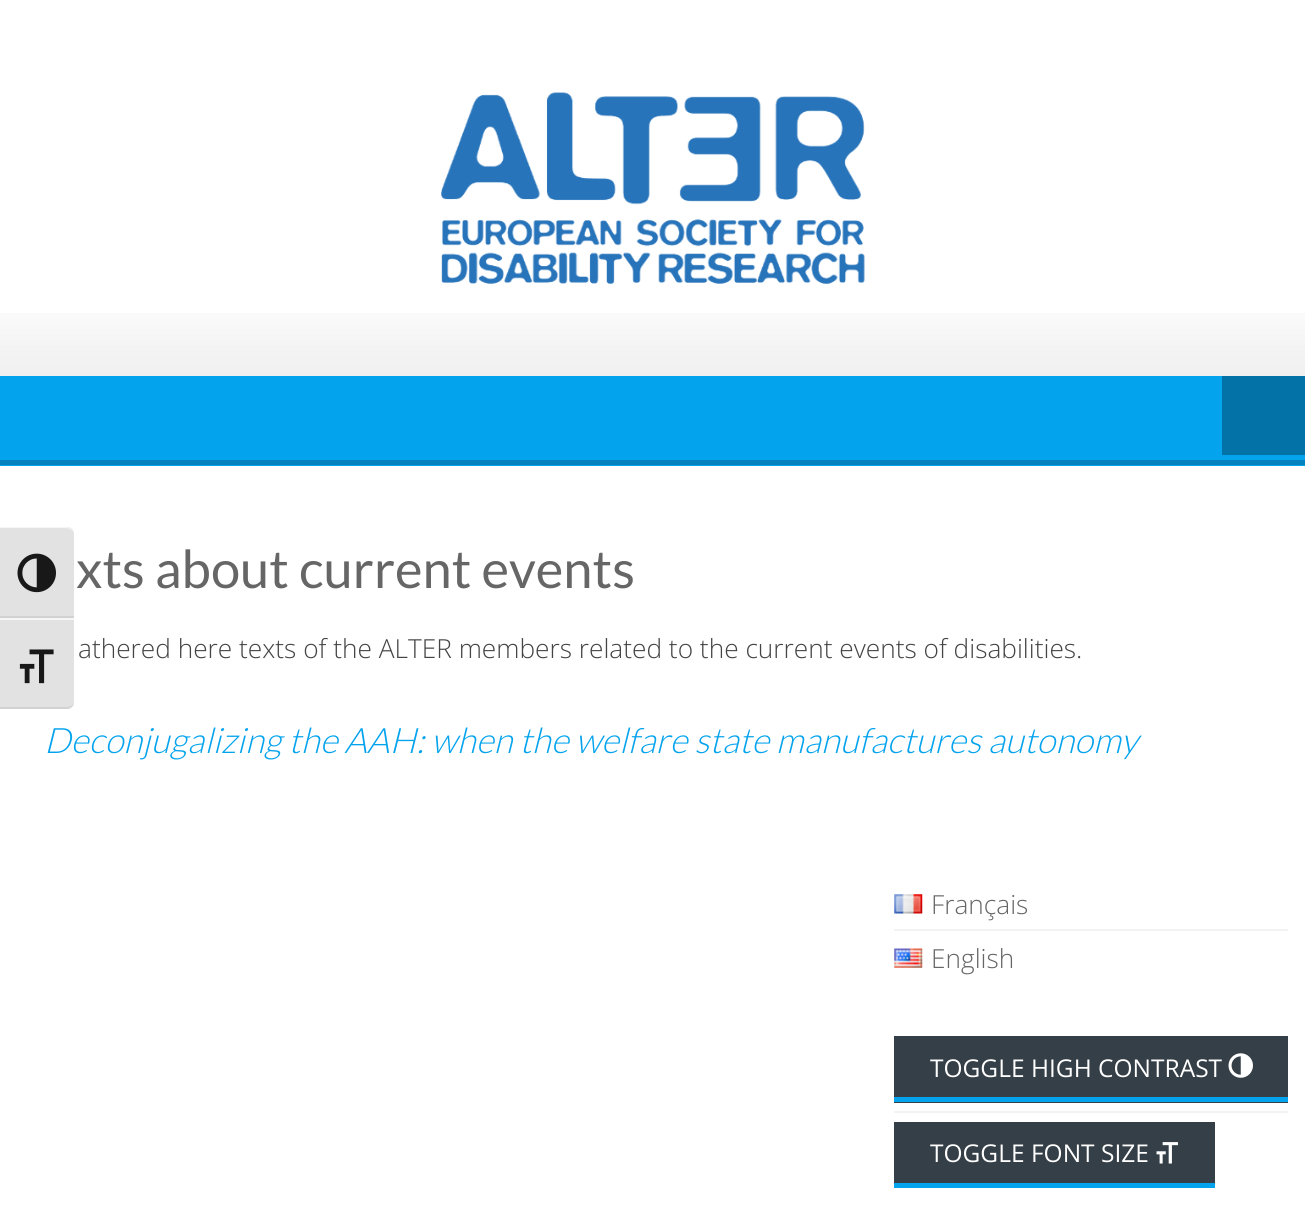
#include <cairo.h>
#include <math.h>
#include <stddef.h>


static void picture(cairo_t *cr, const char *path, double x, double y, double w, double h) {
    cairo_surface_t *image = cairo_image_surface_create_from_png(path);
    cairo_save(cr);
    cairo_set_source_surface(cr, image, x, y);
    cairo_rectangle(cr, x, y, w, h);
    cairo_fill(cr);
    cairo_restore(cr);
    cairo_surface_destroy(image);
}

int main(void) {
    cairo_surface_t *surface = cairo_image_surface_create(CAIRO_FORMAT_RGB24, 1305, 1225);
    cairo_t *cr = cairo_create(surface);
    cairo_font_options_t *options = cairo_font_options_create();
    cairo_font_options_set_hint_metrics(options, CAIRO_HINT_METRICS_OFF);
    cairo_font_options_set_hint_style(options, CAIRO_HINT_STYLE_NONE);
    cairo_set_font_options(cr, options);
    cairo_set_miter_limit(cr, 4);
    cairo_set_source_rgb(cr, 1, 1, 1);
    cairo_paint(cr);
    cairo_set_source_rgb(cr, 0.886, 0.886, 0.886);
    cairo_new_path(cr);
    cairo_move_to(cr, 0, 527);
    cairo_line_to(cr, 67, 527);
    cairo_curve_to(cr, 71, 527, 74, 530, 74, 534);
    cairo_line_to(cr, 74, 618);
    cairo_line_to(cr, 0, 618);
    cairo_close_path(cr);
    cairo_fill(cr);
    cairo_set_source_rgb(cr, 0.961, 0.961, 0.961);
    cairo_new_path(cr);
    cairo_move_to(cr, 0, 528);
    cairo_line_to(cr, 66, 528);
    cairo_curve_to(cr, 69, 528, 72, 530, 74, 532);
    cairo_curve_to(cr, 72, 529, 69, 527, 66, 527);
    cairo_line_to(cr, 0, 527);
    cairo_close_path(cr);
    cairo_fill(cr);
    cairo_set_source_rgb(cr, 0.824, 0.824, 0.824);
    cairo_rectangle(cr, 0, 616, 74, 2);
    cairo_fill(cr);
    picture(cr, "img1.png", 17, 553, 39, 40);
    cairo_set_source_rgb(cr, 0.886, 0.886, 0.886);
    cairo_new_path(cr);
    cairo_move_to(cr, 0, 618);
    cairo_line_to(cr, 74, 618);
    cairo_line_to(cr, 74, 702);
    cairo_curve_to(cr, 74, 706, 71, 709, 67, 709);
    cairo_line_to(cr, 0, 709);
    cairo_close_path(cr);
    cairo_fill(cr);
    cairo_set_source_rgb(cr, 0.961, 0.961, 0.961);
    cairo_rectangle(cr, 0, 618, 74, 2);
    cairo_fill(cr);
    cairo_set_source_rgb(cr, 0.824, 0.824, 0.824);
    cairo_new_path(cr);
    cairo_move_to(cr, 74, 704);
    cairo_curve_to(cr, 72, 706, 69, 707, 66, 707);
    cairo_line_to(cr, 0, 707);
    cairo_line_to(cr, 0, 709);
    cairo_line_to(cr, 68, 709);
    cairo_curve_to(cr, 70, 708, 73, 707, 74, 704);
    cairo_close_path(cr);
    cairo_fill(cr);
    picture(cr, "img2.png", 19, 649, 35, 35);
    picture(cr, "img3.png", 0, 313, 1305, 63);
    picture(cr, "img4.png", 441, 92, 424, 192);
    cairo_set_source_rgb(cr, 0.016, 0.639, 0.929);
    cairo_rectangle(cr, 0, 376, 1305, 90);
    cairo_fill(cr);
    cairo_set_source_rgb(cr, 0.012, 0.51, 0.745);
    cairo_rectangle(cr, 0, 460, 1305, 5);
    cairo_fill(cr);
    cairo_set_source_rgb(cr, 0.012, 0.447, 0.651);
    cairo_rectangle(cr, 1222, 376, 83, 79);
    cairo_fill(cr);
    cairo_select_font_face(cr, "Lato", CAIRO_FONT_SLANT_NORMAL, CAIRO_FONT_WEIGHT_NORMAL);
    cairo_set_font_size(cr, 52.5);
    cairo_set_source_rgb(cr, 0.4, 0.4, 0.4);
    cairo_move_to(cr, 76, 588);
    cairo_show_text(cr, "xts about current events");
    cairo_select_font_face(cr, "Open Sans Light", CAIRO_FONT_SLANT_NORMAL, CAIRO_FONT_WEIGHT_NORMAL);
    cairo_set_font_size(cr, 26.25);
    cairo_set_source_rgb(cr, 0.267, 0.267, 0.267);
    cairo_move_to(cr, 78, 658);
    cairo_show_text(cr, "athered here texts of the ALTER members related to the current events of disabilities.");
    cairo_select_font_face(cr, "Lato Light", CAIRO_FONT_SLANT_ITALIC, CAIRO_FONT_WEIGHT_NORMAL);
    cairo_set_font_size(cr, 35);
    cairo_set_source_rgb(cr, 0.016, 0.639, 0.929);
    cairo_move_to(cr, 44, 753);
    cairo_show_text(cr, "Deconjugalizing the AAH: when the welfare state manufactures autonomy");
    cairo_set_source_rgb(cr, 0.949, 0.949, 0.949);
    cairo_rectangle(cr, 894, 929, 394, 2);
    cairo_fill(cr);
    picture(cr, "img5.png", 894, 894, 29, 20);
    cairo_select_font_face(cr, "Open Sans Light", CAIRO_FONT_SLANT_NORMAL, CAIRO_FONT_WEIGHT_NORMAL);
    cairo_set_font_size(cr, 26.25);
    cairo_set_source_rgb(cr, 0.4, 0.4, 0.4);
    cairo_move_to(cr, 931, 914);
    cairo_show_text(cr, "Français");
    picture(cr, "img6.png", 894, 948, 29, 20);
    cairo_move_to(cr, 931, 968);
    cairo_show_text(cr, "English");
    cairo_set_source_rgb(cr, 0.949, 0.949, 0.949);
    cairo_rectangle(cr, 894, 1111, 394, 2);
    cairo_fill(cr);
    cairo_set_source_rgb(cr, 0.208, 0.247, 0.278);
    cairo_rectangle(cr, 894, 1036, 394, 67);
    cairo_fill(cr);
    cairo_set_source_rgb(cr, 0.016, 0.639, 0.929);
    cairo_rectangle(cr, 894, 1097, 394, 5);
    cairo_fill(cr);
    cairo_select_font_face(cr, "Open Sans", CAIRO_FONT_SLANT_NORMAL, CAIRO_FONT_WEIGHT_NORMAL);
    cairo_set_font_size(cr, 24.5);
    cairo_set_source_rgb(cr, 1, 1, 1);
    cairo_move_to(cr, 930, 1077);
    cairo_show_text(cr, "TOGGLE HIGH CONTRAST");
    picture(cr, "img7.png", 1228, 1053, 25, 25);
    cairo_set_source_rgb(cr, 0.208, 0.247, 0.278);
    cairo_rectangle(cr, 894, 1122, 321, 61);
    cairo_fill(cr);
    cairo_set_source_rgb(cr, 0.016, 0.639, 0.929);
    cairo_rectangle(cr, 894, 1183, 321, 5);
    cairo_fill(cr);
    cairo_set_source_rgb(cr, 1, 1, 1);
    cairo_move_to(cr, 930, 1162);
    cairo_show_text(cr, "TOGGLE FONT SIZE");
    picture(cr, "img8.png", 1156, 1142, 22, 22);
    cairo_surface_write_to_png(surface, "page.png");
    cairo_font_options_destroy(options);
    cairo_destroy(cr);
    cairo_surface_destroy(surface);
    return 0;
}
